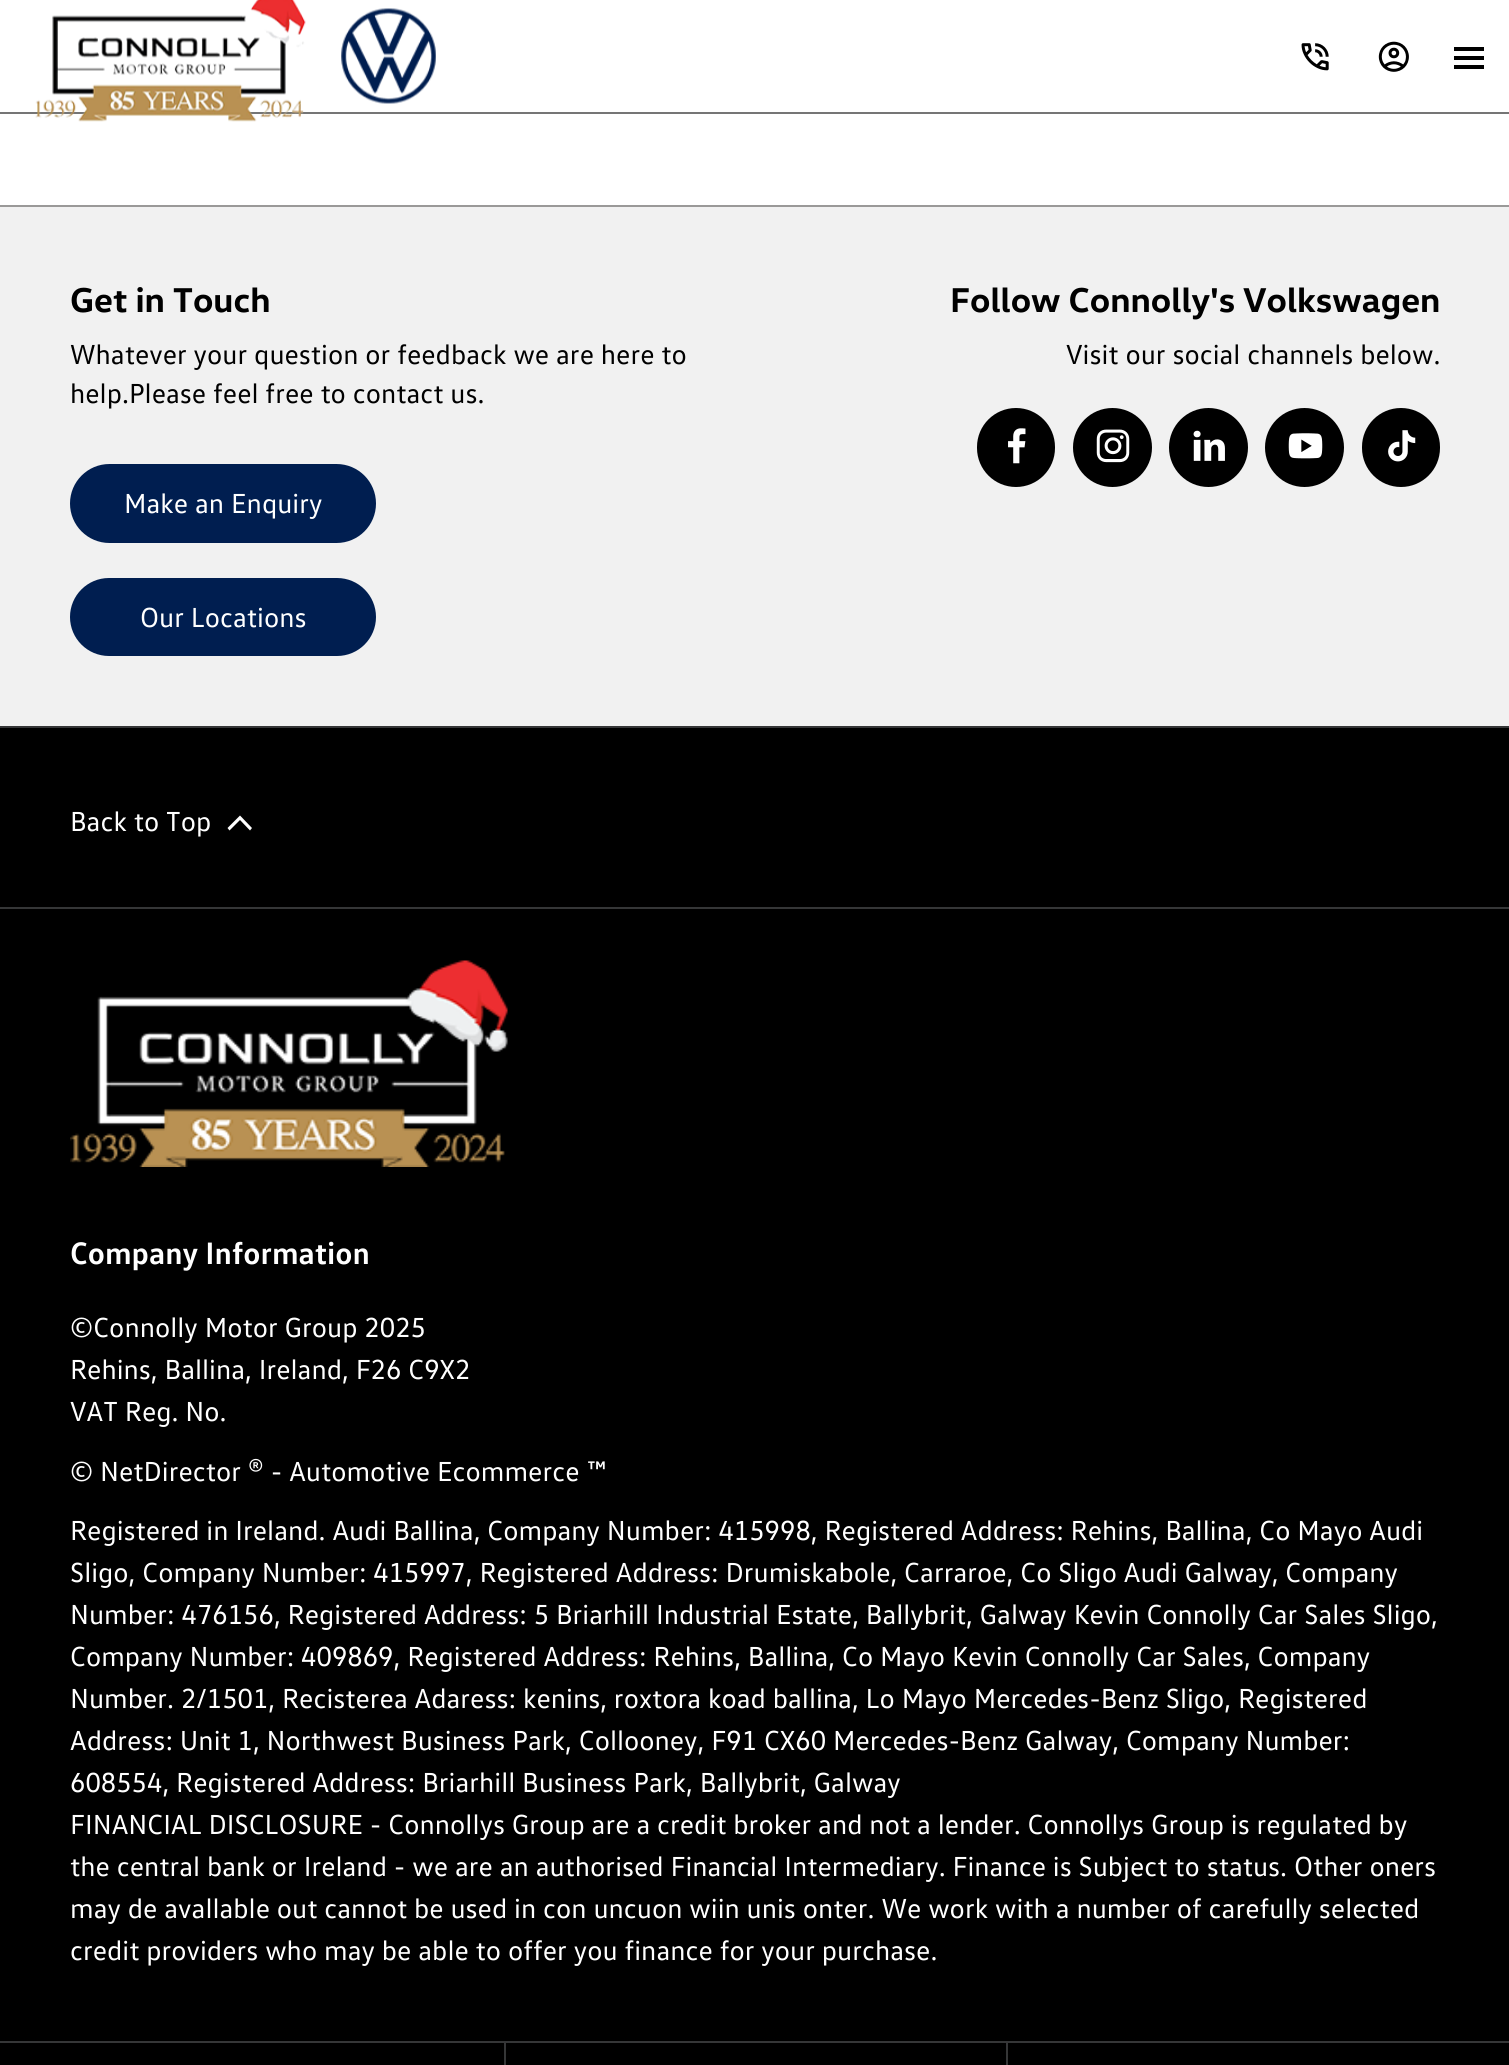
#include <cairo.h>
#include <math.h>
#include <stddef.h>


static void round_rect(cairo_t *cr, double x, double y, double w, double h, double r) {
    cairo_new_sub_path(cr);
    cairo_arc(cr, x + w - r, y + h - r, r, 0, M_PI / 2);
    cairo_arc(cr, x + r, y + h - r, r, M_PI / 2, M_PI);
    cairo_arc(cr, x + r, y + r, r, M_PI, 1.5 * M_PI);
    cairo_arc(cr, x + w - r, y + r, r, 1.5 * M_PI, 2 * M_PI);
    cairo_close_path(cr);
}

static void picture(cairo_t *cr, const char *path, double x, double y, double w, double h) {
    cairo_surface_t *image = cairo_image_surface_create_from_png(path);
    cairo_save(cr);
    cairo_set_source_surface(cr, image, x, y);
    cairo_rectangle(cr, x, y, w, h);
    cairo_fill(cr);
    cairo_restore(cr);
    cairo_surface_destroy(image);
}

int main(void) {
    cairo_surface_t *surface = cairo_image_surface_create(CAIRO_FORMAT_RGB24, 1509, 2065);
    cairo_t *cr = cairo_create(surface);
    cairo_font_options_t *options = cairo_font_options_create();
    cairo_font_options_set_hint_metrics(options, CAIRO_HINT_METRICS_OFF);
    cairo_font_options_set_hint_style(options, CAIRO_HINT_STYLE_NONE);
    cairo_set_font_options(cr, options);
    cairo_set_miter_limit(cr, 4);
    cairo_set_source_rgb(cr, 1, 1, 1);
    cairo_paint(cr);
    cairo_set_source_rgb(cr, 0.459, 0.459, 0.459);
    cairo_rectangle(cr, 0, 112, 1509, 2);
    cairo_fill(cr);
    picture(cr, "img1.png", 35, 0, 271, 122);
    picture(cr, "img2.png", 341, 8, 95, 96);
    picture(cr, "img3.png", 1301, 43, 28, 28);
    picture(cr, "img4.png", 1378, 41, 31, 31);
    cairo_set_source_rgb(cr, 0, 0, 0);
    cairo_rectangle(cr, 1454, 65, 30, 4);
    cairo_fill(cr);
    cairo_rectangle(cr, 1454, 47, 30, 4);
    cairo_fill(cr);
    cairo_rectangle(cr, 1454, 56, 30, 4);
    cairo_fill(cr);
    cairo_rectangle(cr, 0, 728, 1509, 1337);
    cairo_fill(cr);
    cairo_set_source_rgb(cr, 0.945, 0.945, 0.945);
    cairo_rectangle(cr, 0, 207, 1509, 519);
    cairo_fill(cr);
    cairo_set_source_rgb(cr, 0.604, 0.6, 0.596);
    cairo_rectangle(cr, 0, 205, 1509, 2);
    cairo_fill(cr);
    cairo_select_font_face(cr, "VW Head", CAIRO_FONT_SLANT_NORMAL, CAIRO_FONT_WEIGHT_BOLD);
    cairo_set_font_size(cr, 35);
    cairo_set_source_rgb(cr, 0, 0, 0);
    cairo_move_to(cr, 70, 312);
    cairo_show_text(cr, "Get in Touch");
    cairo_select_font_face(cr, "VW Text", CAIRO_FONT_SLANT_NORMAL, CAIRO_FONT_WEIGHT_NORMAL);
    cairo_set_font_size(cr, 28);
    cairo_move_to(cr, 70, 364);
    cairo_show_text(cr, "Whatever your question or feedback we are here to");
    cairo_move_to(cr, 70, 403);
    cairo_show_text(cr, "help.Please feel free to contact us.");
    cairo_set_source_rgb(cr, 0, 0.118, 0.314);
    round_rect(cr, 70, 464, 306, 79, 39.5);
    cairo_fill(cr);
    cairo_set_source_rgb(cr, 1, 1, 1);
    cairo_move_to(cr, 124, 513);
    cairo_show_text(cr, "Make an Enquiry");
    cairo_set_source_rgb(cr, 0, 0.118, 0.314);
    round_rect(cr, 70, 578, 306, 78, 39);
    cairo_fill(cr);
    cairo_set_source_rgb(cr, 1, 1, 1);
    cairo_move_to(cr, 140, 627);
    cairo_show_text(cr, "Our Locations");
    cairo_select_font_face(cr, "VW Head", CAIRO_FONT_SLANT_NORMAL, CAIRO_FONT_WEIGHT_BOLD);
    cairo_set_font_size(cr, 35);
    cairo_set_source_rgb(cr, 0, 0, 0);
    cairo_move_to(cr, 950, 312);
    cairo_show_text(cr, "Follow Connolly's Volkswagen");
    cairo_select_font_face(cr, "VW Text", CAIRO_FONT_SLANT_NORMAL, CAIRO_FONT_WEIGHT_NORMAL);
    cairo_set_font_size(cr, 28);
    cairo_move_to(cr, 1066, 364);
    cairo_show_text(cr, "Visit our social channels below.");
    round_rect(cr, 977, 408, 78, 79, 39);
    cairo_fill(cr);
    picture(cr, "img5.png", 1008, 428, 18, 36);
    cairo_arc(cr, 1112.5, 447.5, 39.5, 0, 2 * M_PI);
    cairo_fill(cr);
    picture(cr, "img6.png", 1096, 429, 34, 34);
    cairo_arc(cr, 1208.5, 447.5, 39.5, 0, 2 * M_PI);
    cairo_fill(cr);
    picture(cr, "img7.png", 1193, 430, 32, 31);
    cairo_arc(cr, 1304.5, 447.5, 39.5, 0, 2 * M_PI);
    cairo_fill(cr);
    picture(cr, "img8.png", 1288, 433, 35, 26);
    round_rect(cr, 1362, 408, 78, 79, 39);
    cairo_fill(cr);
    picture(cr, "img9.png", 1388, 430, 28, 32);
    cairo_set_source_rgb(cr, 0.208, 0.212, 0.216);
    cairo_rectangle(cr, 0, 726, 1509, 2);
    cairo_fill(cr);
    cairo_set_source_rgb(cr, 1, 1, 1);
    cairo_move_to(cr, 70, 831);
    cairo_show_text(cr, "Back to Top");
    cairo_new_path(cr);
    cairo_move_to(cr, 240, 820);
    cairo_line_to(cr, 250, 830.5);
    cairo_line_to(cr, 252, 828);
    cairo_line_to(cr, 240, 815.5);
    cairo_line_to(cr, 227.5, 828);
    cairo_line_to(cr, 229.5, 830.5);
    cairo_close_path(cr);
    cairo_fill(cr);
    cairo_set_source_rgb(cr, 0.208, 0.212, 0.216);
    cairo_rectangle(cr, 0, 907, 1509, 2);
    cairo_fill(cr);
    cairo_rectangle(cr, 0, 2041, 1509, 2);
    cairo_fill(cr);
    picture(cr, "img10.png", 70, 960, 438, 207);
    cairo_select_font_face(cr, "VW Text", CAIRO_FONT_SLANT_NORMAL, CAIRO_FONT_WEIGHT_BOLD);
    cairo_set_font_size(cr, 31.5);
    cairo_set_source_rgb(cr, 1, 1, 1);
    cairo_move_to(cr, 70, 1264);
    cairo_show_text(cr, "Company Information");
    cairo_select_font_face(cr, "VW Text", CAIRO_FONT_SLANT_NORMAL, CAIRO_FONT_WEIGHT_NORMAL);
    cairo_set_font_size(cr, 28);
    cairo_move_to(cr, 70, 1337);
    cairo_show_text(cr, "©Connolly Motor Group 2025");
    cairo_move_to(cr, 70, 1379);
    cairo_show_text(cr, "Rehins, Ballina, Ireland, F26 C9X2");
    cairo_move_to(cr, 70, 1421);
    cairo_show_text(cr, "VAT Reg. No.");
    cairo_move_to(cr, 70, 1481);
    cairo_show_text(cr, "© NetDirector ® - Automotive Ecommerce ™");
    cairo_move_to(cr, 70, 1540);
    cairo_show_text(cr, "Registered in Ireland. Audi Ballina, Company Number: 415998, Registered Address: Rehins, Ballina, Co Mayo Audi");
    cairo_move_to(cr, 70, 1582);
    cairo_show_text(cr, "Sligo, Company Number: 415997, Registered Address: Drumiskabole, Carraroe, Co Sligo Audi Galway, Company");
    cairo_move_to(cr, 70, 1624);
    cairo_show_text(cr, "Number: 476156, Registered Address: 5 Briarhill Industrial Estate, Ballybrit, Galway Kevin Connolly Car Sales Sligo,");
    cairo_move_to(cr, 70, 1666);
    cairo_show_text(cr, "Company Number: 409869, Registered Address: Rehins, Ballina, Co Mayo Kevin Connolly Car Sales, Company");
    cairo_move_to(cr, 70, 1708);
    cairo_show_text(cr, "Number. 2/1501, Recisterea Adaress: kenins, roxtora koad ballina, Lo Mayo Mercedes-Benz Sligo, Registered");
    cairo_move_to(cr, 70, 1750);
    cairo_show_text(cr, "Address: Unit 1, Northwest Business Park, Collooney, F91 CX60 Mercedes-Benz Galway, Company Number:");
    cairo_move_to(cr, 70, 1792);
    cairo_show_text(cr, "608554, Registered Address: Briarhill Business Park, Ballybrit, Galway");
    cairo_move_to(cr, 70, 1834);
    cairo_show_text(cr, "FINANCIAL DISCLOSURE - Connollys Group are a credit broker and not a lender. Connollys Group is regulated by");
    cairo_move_to(cr, 70, 1876);
    cairo_show_text(cr, "the central bank or Ireland - we are an authorised Financial Intermediary. Finance is Subject to status. Other oners");
    cairo_move_to(cr, 70, 1918);
    cairo_show_text(cr, "may de avallable out cannot be used in con uncuon wiin unis onter. We work with a number of carefully selected");
    cairo_move_to(cr, 70, 1960);
    cairo_show_text(cr, "credit providers who may be able to offer you finance for your purchase.");
    cairo_set_source_rgb(cr, 0.208, 0.212, 0.216);
    cairo_rectangle(cr, 504, 2042, 2, 23);
    cairo_fill(cr);
    cairo_rectangle(cr, 1006, 2042, 2, 23);
    cairo_fill(cr);
    cairo_surface_write_to_png(surface, "page.png");
    cairo_font_options_destroy(options);
    cairo_destroy(cr);
    cairo_surface_destroy(surface);
    return 0;
}
